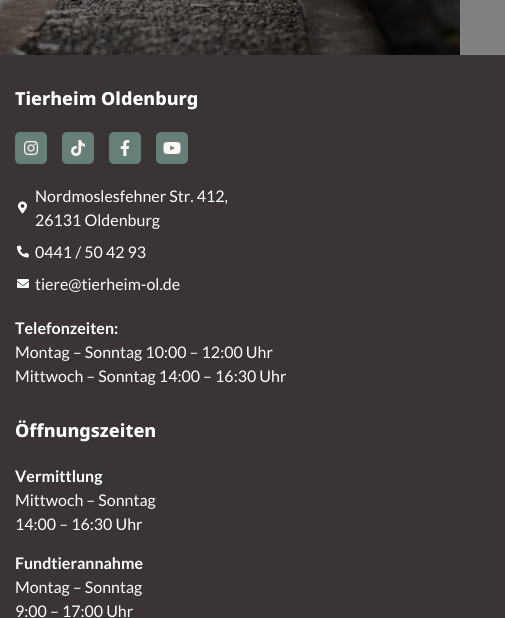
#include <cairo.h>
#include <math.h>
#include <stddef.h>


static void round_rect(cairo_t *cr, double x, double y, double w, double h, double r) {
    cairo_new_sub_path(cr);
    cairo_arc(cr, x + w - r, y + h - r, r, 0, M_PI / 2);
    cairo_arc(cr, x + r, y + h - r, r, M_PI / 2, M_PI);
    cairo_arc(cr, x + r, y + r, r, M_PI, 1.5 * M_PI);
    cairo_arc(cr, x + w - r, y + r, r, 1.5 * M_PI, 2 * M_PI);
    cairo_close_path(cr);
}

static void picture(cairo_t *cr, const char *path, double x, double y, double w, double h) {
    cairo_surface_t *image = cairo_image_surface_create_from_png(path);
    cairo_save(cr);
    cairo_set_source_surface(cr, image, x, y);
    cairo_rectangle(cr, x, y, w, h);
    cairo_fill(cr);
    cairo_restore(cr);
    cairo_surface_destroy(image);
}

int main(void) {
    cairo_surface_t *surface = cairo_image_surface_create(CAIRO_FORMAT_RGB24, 505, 618);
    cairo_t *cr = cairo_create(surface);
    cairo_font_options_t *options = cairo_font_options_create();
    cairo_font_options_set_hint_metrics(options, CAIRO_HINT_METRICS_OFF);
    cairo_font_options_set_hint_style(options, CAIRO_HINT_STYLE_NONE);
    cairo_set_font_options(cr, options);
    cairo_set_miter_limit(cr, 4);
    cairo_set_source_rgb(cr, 0.502, 0.502, 0.502);
    cairo_paint(cr);
    picture(cr, "img1.png", 0, 0, 460, 55);
    cairo_set_source_rgb(cr, 0.227, 0.204, 0.204);
    cairo_rectangle(cr, 0, 55, 505, 563);
    cairo_fill(cr);
    cairo_select_font_face(cr, "Noto Sans ExtraBold", CAIRO_FONT_SLANT_NORMAL, CAIRO_FONT_WEIGHT_NORMAL);
    cairo_set_font_size(cr, 18);
    cairo_set_source_rgb(cr, 1, 1, 1);
    cairo_move_to(cr, 15, 105);
    cairo_show_text(cr, "Tierheim Oldenburg");
    cairo_set_source_rgb(cr, 0.4, 0.498, 0.475);
    round_rect(cr, 15, 132, 32, 32, 5);
    cairo_fill(cr);
    picture(cr, "img2.png", 24, 141, 14, 14);
    round_rect(cr, 62, 132, 32, 32, 5);
    cairo_fill(cr);
    picture(cr, "img3.png", 71, 140, 14, 16);
    round_rect(cr, 109, 132, 32, 32, 5);
    cairo_fill(cr);
    picture(cr, "img4.png", 120, 140, 10, 16);
    round_rect(cr, 156, 132, 32, 32, 5);
    cairo_fill(cr);
    picture(cr, "img5.png", 163, 142, 18, 12);
    picture(cr, "img6.png", 18, 201, 9, 13);
    cairo_select_font_face(cr, "Lato", CAIRO_FONT_SLANT_NORMAL, CAIRO_FONT_WEIGHT_NORMAL);
    cairo_set_font_size(cr, 16);
    cairo_set_source_rgb(cr, 1, 1, 1);
    cairo_move_to(cr, 35, 202);
    cairo_show_text(cr, "Nordmoslesfehner Str. 412,");
    cairo_move_to(cr, 35, 226);
    cairo_show_text(cr, "26131 Oldenburg");
    picture(cr, "img7.png", 17, 245, 12, 13);
    cairo_move_to(cr, 35, 258);
    cairo_show_text(cr, "0441 / 50 42 93");
    picture(cr, "img8.png", 17, 279, 12, 9);
    cairo_move_to(cr, 35, 290);
    cairo_show_text(cr, "tiere@tierheim-ol.de");
    cairo_select_font_face(cr, "Lato", CAIRO_FONT_SLANT_NORMAL, CAIRO_FONT_WEIGHT_BOLD);
    cairo_move_to(cr, 15, 334);
    cairo_show_text(cr, "Telefonzeiten:");
    cairo_select_font_face(cr, "Lato", CAIRO_FONT_SLANT_NORMAL, CAIRO_FONT_WEIGHT_NORMAL);
    cairo_move_to(cr, 15, 358);
    cairo_show_text(cr, "Montag – Sonntag 10:00 – 12:00 Uhr");
    cairo_move_to(cr, 15, 382);
    cairo_show_text(cr, "Mittwoch – Sonntag 14:00 – 16:30 Uhr");
    cairo_select_font_face(cr, "Noto Sans ExtraBold", CAIRO_FONT_SLANT_NORMAL, CAIRO_FONT_WEIGHT_NORMAL);
    cairo_set_font_size(cr, 18);
    cairo_move_to(cr, 15, 437);
    cairo_show_text(cr, "Öffnungszeiten");
    cairo_select_font_face(cr, "Lato", CAIRO_FONT_SLANT_NORMAL, CAIRO_FONT_WEIGHT_BOLD);
    cairo_set_font_size(cr, 16);
    cairo_move_to(cr, 15, 482);
    cairo_show_text(cr, "Vermittlung");
    cairo_select_font_face(cr, "Lato", CAIRO_FONT_SLANT_NORMAL, CAIRO_FONT_WEIGHT_NORMAL);
    cairo_move_to(cr, 15, 506);
    cairo_show_text(cr, "Mittwoch – Sonntag");
    cairo_move_to(cr, 15, 530);
    cairo_show_text(cr, "14:00 – 16:30 Uhr");
    cairo_select_font_face(cr, "Lato", CAIRO_FONT_SLANT_NORMAL, CAIRO_FONT_WEIGHT_BOLD);
    cairo_move_to(cr, 15, 569);
    cairo_show_text(cr, "Fundtierannahme");
    cairo_select_font_face(cr, "Lato", CAIRO_FONT_SLANT_NORMAL, CAIRO_FONT_WEIGHT_NORMAL);
    cairo_move_to(cr, 15, 593);
    cairo_show_text(cr, "Montag – Sonntag");
    cairo_move_to(cr, 15, 617);
    cairo_show_text(cr, "9:00 – 17:00 Uhr");
    cairo_surface_write_to_png(surface, "page.png");
    cairo_font_options_destroy(options);
    cairo_destroy(cr);
    cairo_surface_destroy(surface);
    return 0;
}
